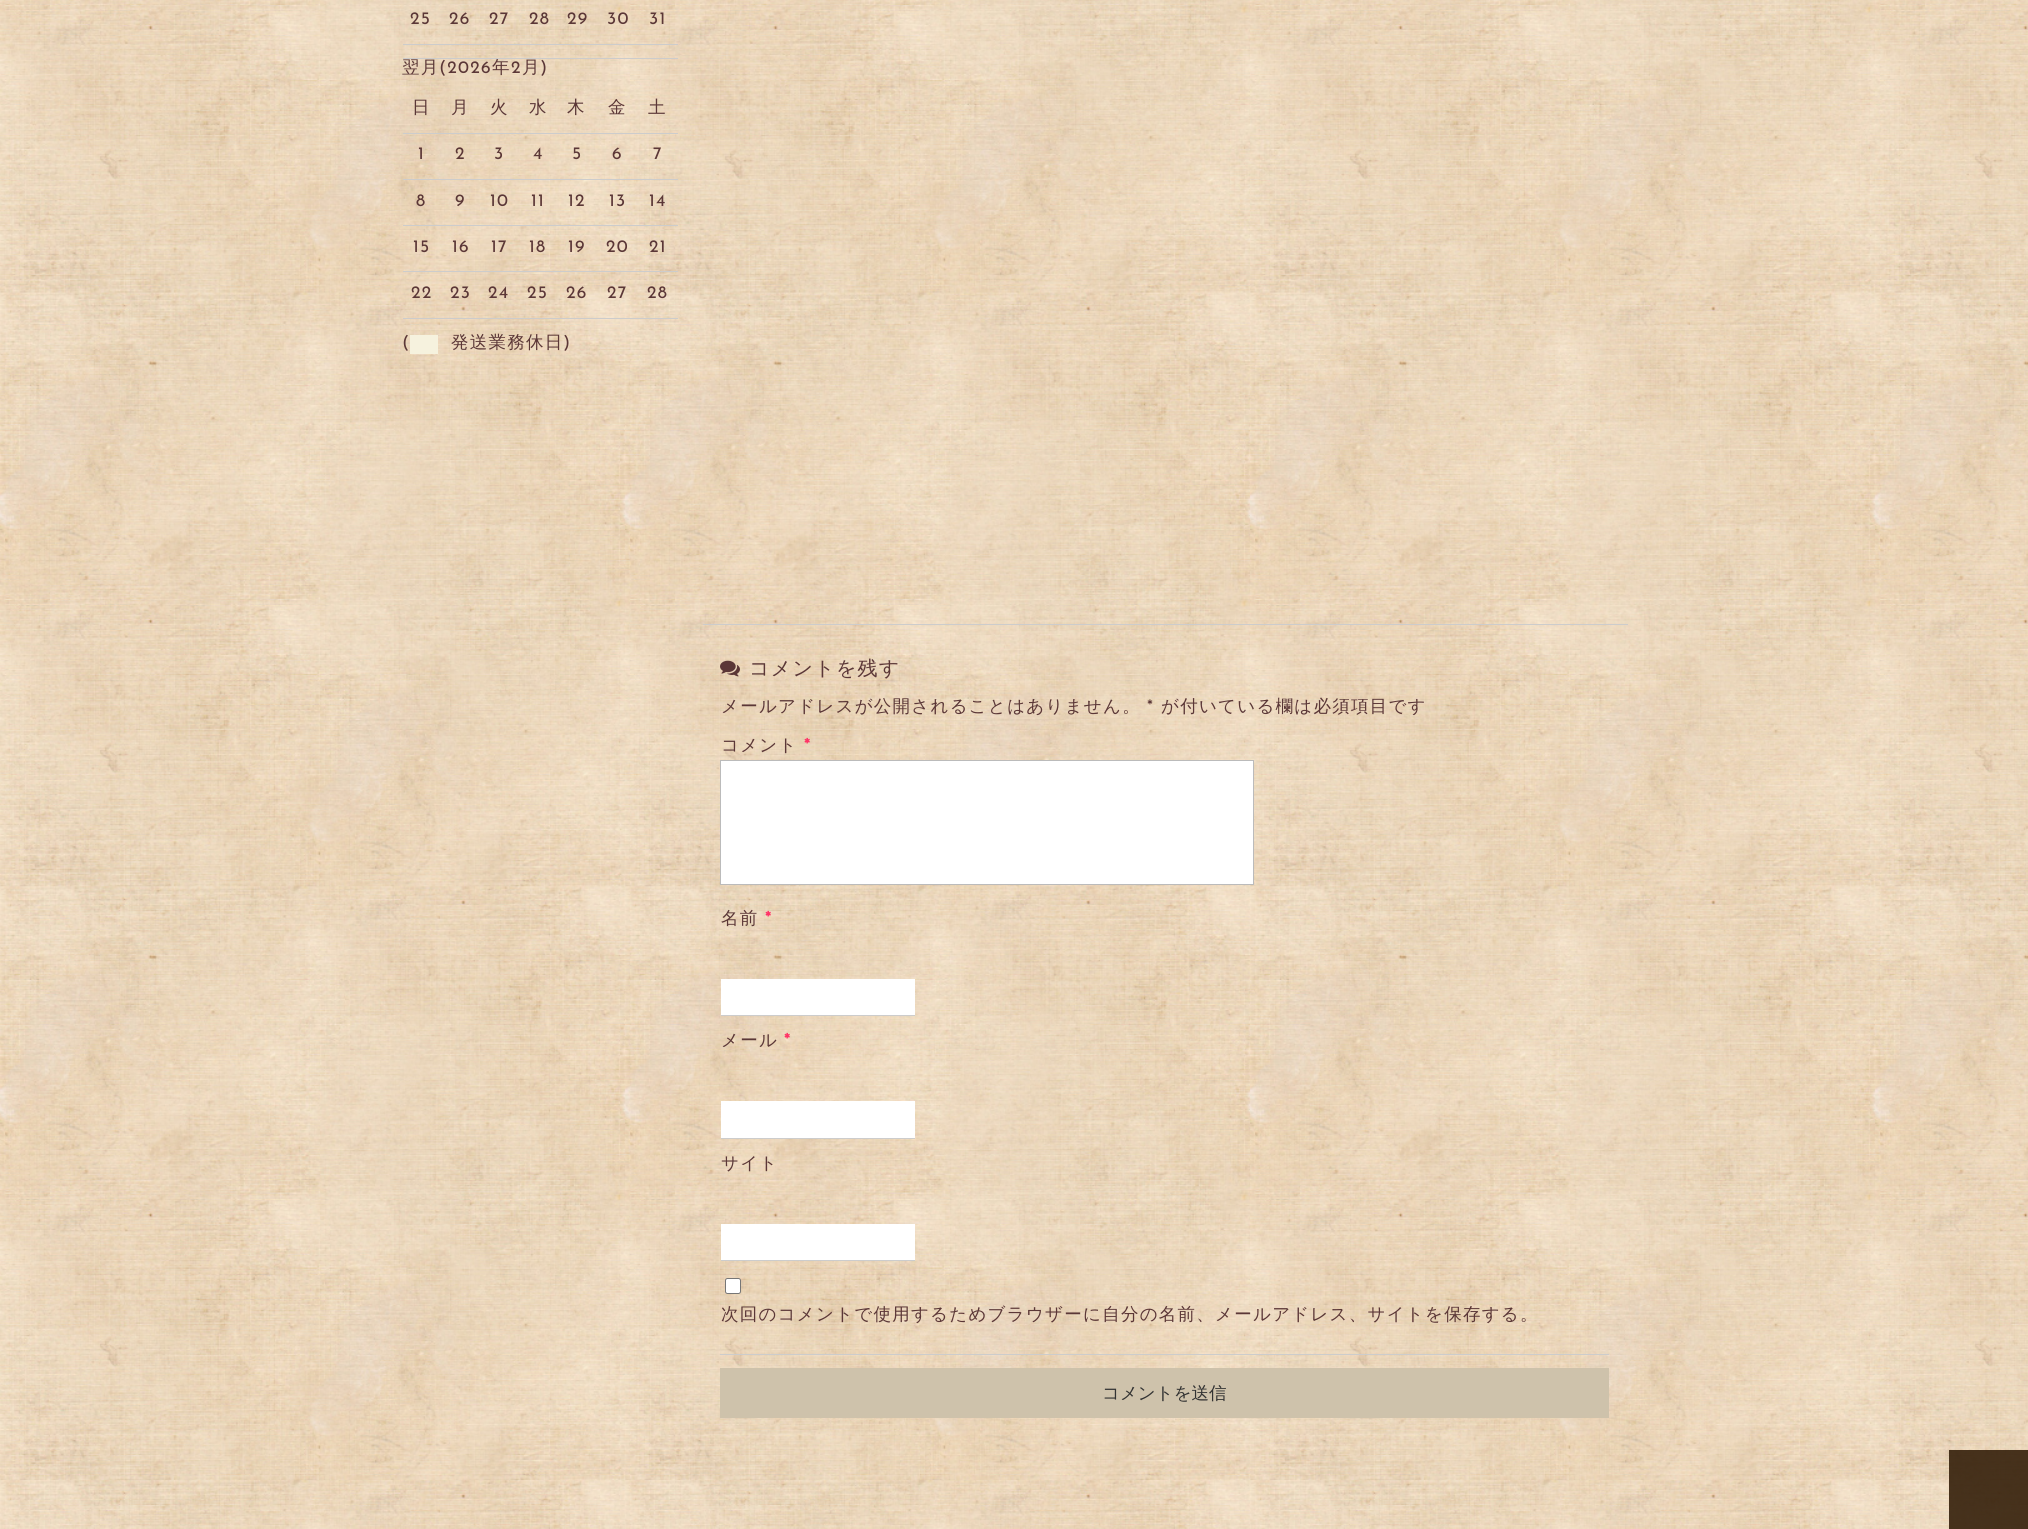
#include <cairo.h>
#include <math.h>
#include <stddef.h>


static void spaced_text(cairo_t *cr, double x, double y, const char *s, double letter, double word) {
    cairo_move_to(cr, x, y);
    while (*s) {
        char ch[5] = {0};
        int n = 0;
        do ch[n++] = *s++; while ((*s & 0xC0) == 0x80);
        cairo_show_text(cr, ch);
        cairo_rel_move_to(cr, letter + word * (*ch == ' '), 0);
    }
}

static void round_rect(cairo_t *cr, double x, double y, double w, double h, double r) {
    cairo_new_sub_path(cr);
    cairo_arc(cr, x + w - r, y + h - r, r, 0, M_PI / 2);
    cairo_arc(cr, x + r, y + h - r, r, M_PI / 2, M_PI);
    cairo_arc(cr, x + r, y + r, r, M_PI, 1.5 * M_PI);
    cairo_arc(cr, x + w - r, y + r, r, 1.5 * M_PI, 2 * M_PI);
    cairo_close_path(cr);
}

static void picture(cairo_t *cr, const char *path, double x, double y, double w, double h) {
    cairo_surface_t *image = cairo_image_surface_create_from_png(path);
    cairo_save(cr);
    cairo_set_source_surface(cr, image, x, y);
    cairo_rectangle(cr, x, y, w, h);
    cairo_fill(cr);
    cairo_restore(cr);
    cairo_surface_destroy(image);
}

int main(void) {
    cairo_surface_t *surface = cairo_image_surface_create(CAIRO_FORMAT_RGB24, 2028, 1529);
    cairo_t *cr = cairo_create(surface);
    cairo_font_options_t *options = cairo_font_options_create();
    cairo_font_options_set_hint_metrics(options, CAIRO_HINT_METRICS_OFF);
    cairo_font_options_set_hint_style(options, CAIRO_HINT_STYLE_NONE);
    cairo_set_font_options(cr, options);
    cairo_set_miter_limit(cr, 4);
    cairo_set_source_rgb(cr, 1, 1, 1);
    cairo_paint(cr);
    picture(cr, "img1.png", 0, 0, 2028, 1529);
    cairo_set_source_rgb(cr, 0.8, 0.8, 0.8);
    cairo_rectangle(cr, 403, 44, 275, 1);
    cairo_fill(cr);
    cairo_select_font_face(cr, "Josefin Sans Thin", CAIRO_FONT_SLANT_NORMAL, CAIRO_FONT_WEIGHT_NORMAL);
    cairo_set_font_size(cr, 17.5);
    cairo_set_source_rgb(cr, 0.357, 0.216, 0.216);
    spaced_text(cr, 410, 24, "25", 1.25, 0);
    spaced_text(cr, 449, 24, "26", 1.25, 0);
    spaced_text(cr, 489, 24, "27", 1.25, 0);
    spaced_text(cr, 529, 24, "28", 1.25, 0);
    spaced_text(cr, 567, 24, "29", 1.25, 0);
    spaced_text(cr, 607, 24, "30", 1.25, 0);
    spaced_text(cr, 649, 24, "31", 1.25, 0);
    cairo_set_source_rgb(cr, 0.8, 0.8, 0.8);
    cairo_rectangle(cr, 403, 58, 275, 1);
    cairo_fill(cr);
    cairo_select_font_face(cr, "WenQuanYi Zen Hei Medium", CAIRO_FONT_SLANT_NORMAL, CAIRO_FONT_WEIGHT_NORMAL);
    cairo_set_source_rgb(cr, 0.357, 0.216, 0.216);
    spaced_text(cr, 402, 73, "翌月", 1.25, 0);
    cairo_select_font_face(cr, "Josefin Sans Thin", CAIRO_FONT_SLANT_NORMAL, CAIRO_FONT_WEIGHT_NORMAL);
    spaced_text(cr, 439, 73, "(2026", 1.25, 0);
    cairo_select_font_face(cr, "WenQuanYi Zen Hei Medium", CAIRO_FONT_SLANT_NORMAL, CAIRO_FONT_WEIGHT_NORMAL);
    spaced_text(cr, 492, 73, "年", 1.25, 0);
    cairo_select_font_face(cr, "Josefin Sans Thin", CAIRO_FONT_SLANT_NORMAL, CAIRO_FONT_WEIGHT_NORMAL);
    spaced_text(cr, 511, 73, "2", 1.25, 0);
    cairo_select_font_face(cr, "WenQuanYi Zen Hei Medium", CAIRO_FONT_SLANT_NORMAL, CAIRO_FONT_WEIGHT_NORMAL);
    spaced_text(cr, 522, 73, "月", 1.25, 0);
    cairo_select_font_face(cr, "Josefin Sans Thin", CAIRO_FONT_SLANT_NORMAL, CAIRO_FONT_WEIGHT_NORMAL);
    spaced_text(cr, 540, 73, ")", 1.25, 0);
    cairo_set_source_rgb(cr, 0.8, 0.8, 0.8);
    cairo_rectangle(cr, 403, 133, 275, 1);
    cairo_fill(cr);
    cairo_select_font_face(cr, "WenQuanYi Zen Hei Medium", CAIRO_FONT_SLANT_NORMAL, CAIRO_FONT_WEIGHT_NORMAL);
    cairo_set_source_rgb(cr, 0.357, 0.216, 0.216);
    spaced_text(cr, 412, 113, "日", 1.25, 0);
    spaced_text(cr, 451, 113, "月", 1.25, 0);
    spaced_text(cr, 490, 113, "火", 1.25, 0);
    spaced_text(cr, 529, 113, "水", 1.25, 0);
    spaced_text(cr, 567, 113, "木", 1.25, 0);
    spaced_text(cr, 608, 113, "金", 1.25, 0);
    spaced_text(cr, 648, 113, "土", 1.25, 0);
    cairo_set_source_rgb(cr, 0.8, 0.8, 0.8);
    cairo_rectangle(cr, 403, 179, 275, 1);
    cairo_fill(cr);
    cairo_select_font_face(cr, "Josefin Sans Thin", CAIRO_FONT_SLANT_NORMAL, CAIRO_FONT_WEIGHT_NORMAL);
    cairo_set_source_rgb(cr, 0.357, 0.216, 0.216);
    spaced_text(cr, 418, 159, "1", 1.25, 0);
    spaced_text(cr, 455, 159, "2", 1.25, 0);
    spaced_text(cr, 494, 159, "3", 1.25, 0);
    spaced_text(cr, 533, 159, "4", 1.25, 0);
    spaced_text(cr, 572, 159, "5", 1.25, 0);
    spaced_text(cr, 612, 159, "6", 1.25, 0);
    spaced_text(cr, 653, 159, "7", 1.25, 0);
    cairo_set_source_rgb(cr, 0.8, 0.8, 0.8);
    cairo_rectangle(cr, 403, 225, 275, 1);
    cairo_fill(cr);
    cairo_set_source_rgb(cr, 0.357, 0.216, 0.216);
    spaced_text(cr, 416, 206, "8", 1.25, 0);
    spaced_text(cr, 455, 206, "9", 1.25, 0);
    spaced_text(cr, 490, 206, "10", 1.25, 0);
    spaced_text(cr, 531, 206, "11", 1.25, 0);
    spaced_text(cr, 568, 206, "12", 1.25, 0);
    spaced_text(cr, 609, 206, "13", 1.25, 0);
    spaced_text(cr, 649, 206, "14", 1.25, 0);
    cairo_set_source_rgb(cr, 0.8, 0.8, 0.8);
    cairo_rectangle(cr, 403, 271, 275, 1);
    cairo_fill(cr);
    cairo_set_source_rgb(cr, 0.357, 0.216, 0.216);
    spaced_text(cr, 413, 252, "15", 1.25, 0);
    spaced_text(cr, 452, 252, "16", 1.25, 0);
    spaced_text(cr, 491, 252, "17", 1.25, 0);
    spaced_text(cr, 529, 252, "18", 1.25, 0);
    spaced_text(cr, 568, 252, "19", 1.25, 0);
    spaced_text(cr, 606, 252, "20", 1.25, 0);
    spaced_text(cr, 649, 252, "21", 1.25, 0);
    cairo_set_source_rgb(cr, 0.8, 0.8, 0.8);
    cairo_rectangle(cr, 403, 318, 275, 1);
    cairo_fill(cr);
    cairo_set_source_rgb(cr, 0.357, 0.216, 0.216);
    spaced_text(cr, 411, 298, "22", 1.25, 0);
    spaced_text(cr, 450, 298, "23", 1.25, 0);
    spaced_text(cr, 488, 298, "24", 1.25, 0);
    spaced_text(cr, 527, 298, "25", 1.25, 0);
    spaced_text(cr, 566, 298, "26", 1.25, 0);
    spaced_text(cr, 607, 298, "27", 1.25, 0);
    spaced_text(cr, 647, 298, "28", 1.25, 0);
    spaced_text(cr, 402, 348, "(", 1.25, 0);
    cairo_set_source_rgb(cr, 0.961, 0.949, 0.871);
    cairo_rectangle(cr, 410, 335, 28, 19);
    cairo_fill(cr);
    cairo_select_font_face(cr, "WenQuanYi Zen Hei Medium", CAIRO_FONT_SLANT_NORMAL, CAIRO_FONT_WEIGHT_NORMAL);
    cairo_set_source_rgb(cr, 0.357, 0.216, 0.216);
    spaced_text(cr, 451, 348, "発送業務休日", 1.25, 0);
    cairo_select_font_face(cr, "Josefin Sans Thin", CAIRO_FONT_SLANT_NORMAL, CAIRO_FONT_WEIGHT_NORMAL);
    spaced_text(cr, 563, 348, ")", 1.25, 0);
    cairo_set_source_rgb(cr, 0.8, 0.8, 0.8);
    cairo_rectangle(cr, 703, 624, 925, 1);
    cairo_fill(cr);
    picture(cr, "img2.png", 720, 660, 20, 17);
    cairo_select_font_face(cr, "WenQuanYi Zen Hei Medium", CAIRO_FONT_SLANT_NORMAL, CAIRO_FONT_WEIGHT_NORMAL);
    cairo_set_font_size(cr, 20);
    cairo_set_source_rgb(cr, 0.357, 0.216, 0.216);
    spaced_text(cr, 749, 675, "コメントを残す", 1.25, 0);
    cairo_set_font_size(cr, 17.5);
    spaced_text(cr, 721, 712, "メールアドレスが公開されることはありません。", 1.25, 0);
    cairo_select_font_face(cr, "Josefin Sans Thin", CAIRO_FONT_SLANT_NORMAL, CAIRO_FONT_WEIGHT_NORMAL);
    spaced_text(cr, 1147, 712, "*", 1.25, 0);
    cairo_select_font_face(cr, "WenQuanYi Zen Hei Medium", CAIRO_FONT_SLANT_NORMAL, CAIRO_FONT_WEIGHT_NORMAL);
    spaced_text(cr, 1161, 712, "が付いている欄は必須項目です", 1.25, 0);
    spaced_text(cr, 721, 751, "コメント", 1.25, 0);
    cairo_select_font_face(cr, "Josefin Sans", CAIRO_FONT_SLANT_NORMAL, CAIRO_FONT_WEIGHT_BOLD);
    cairo_set_source_rgb(cr, 1, 0.2, 0.4);
    spaced_text(cr, 804, 751, "*", 1.25, 0);
    cairo_set_source_rgb(cr, 1, 1, 1);
    cairo_rectangle(cr, 720.5, 760.5, 533, 124);
    cairo_fill_preserve(cr);
    cairo_set_source_rgb(cr, 0.733, 0.733, 0.733);
    cairo_set_line_width(cr, 1);
    cairo_stroke(cr);
    cairo_select_font_face(cr, "WenQuanYi Zen Hei Medium", CAIRO_FONT_SLANT_NORMAL, CAIRO_FONT_WEIGHT_NORMAL);
    cairo_set_source_rgb(cr, 0.357, 0.216, 0.216);
    spaced_text(cr, 721, 924, "名前", 1.25, 0);
    cairo_select_font_face(cr, "Josefin Sans", CAIRO_FONT_SLANT_NORMAL, CAIRO_FONT_WEIGHT_BOLD);
    cairo_set_source_rgb(cr, 1, 0.2, 0.4);
    spaced_text(cr, 765, 924, "*", 1.25, 0);
    cairo_set_source_rgb(cr, 1, 1, 1);
    cairo_rectangle(cr, 721, 979, 194, 36);
    cairo_fill(cr);
    cairo_set_source_rgb(cr, 0.8, 0.8, 0.8);
    cairo_rectangle(cr, 721, 1015, 194, 1);
    cairo_fill(cr);
    cairo_select_font_face(cr, "WenQuanYi Zen Hei Medium", CAIRO_FONT_SLANT_NORMAL, CAIRO_FONT_WEIGHT_NORMAL);
    cairo_set_source_rgb(cr, 0.357, 0.216, 0.216);
    spaced_text(cr, 721, 1046, "メール", 1.25, 0);
    cairo_select_font_face(cr, "Josefin Sans", CAIRO_FONT_SLANT_NORMAL, CAIRO_FONT_WEIGHT_BOLD);
    cairo_set_source_rgb(cr, 1, 0.2, 0.4);
    spaced_text(cr, 784, 1046, "*", 1.25, 0);
    cairo_set_source_rgb(cr, 1, 1, 1);
    cairo_rectangle(cr, 721, 1101, 194, 37);
    cairo_fill(cr);
    cairo_set_source_rgb(cr, 0.8, 0.8, 0.8);
    cairo_rectangle(cr, 721, 1138, 194, 1);
    cairo_fill(cr);
    cairo_select_font_face(cr, "WenQuanYi Zen Hei Medium", CAIRO_FONT_SLANT_NORMAL, CAIRO_FONT_WEIGHT_NORMAL);
    cairo_set_source_rgb(cr, 0.357, 0.216, 0.216);
    spaced_text(cr, 721, 1169, "サイト", 1.25, 0);
    cairo_set_source_rgb(cr, 1, 1, 1);
    cairo_rectangle(cr, 721, 1224, 194, 36);
    cairo_fill(cr);
    cairo_set_source_rgb(cr, 0.8, 0.8, 0.8);
    cairo_rectangle(cr, 721, 1260, 194, 1);
    cairo_fill(cr);
    cairo_set_source_rgb(cr, 1, 1, 1);
    round_rect(cr, 725.5, 1278.5, 15, 15, 2);
    cairo_fill_preserve(cr);
    cairo_set_source_rgb(cr, 0.463, 0.463, 0.463);
    cairo_stroke(cr);
    cairo_set_source_rgb(cr, 0.357, 0.216, 0.216);
    spaced_text(cr, 721, 1320, "次回のコメントで使用するためブラウザーに自分の名前、メールアドレス、サイトを保存する。", 1.25, 0);
    cairo_set_source_rgb(cr, 0.8, 0.8, 0.8);
    cairo_rectangle(cr, 720, 1354, 889, 1);
    cairo_fill(cr);
    cairo_set_source_rgb(cr, 0.808, 0.761, 0.671);
    cairo_rectangle(cr, 720, 1368, 889, 50);
    cairo_fill(cr);
    cairo_set_source_rgb(cr, 0.2, 0.2, 0.2);
    cairo_move_to(cr, 1102, 1399);
    cairo_show_text(cr, "コメントを送信");
    cairo_set_source_rgba(cr, 0.208, 0.125, 0.043, 0.9);
    cairo_rectangle(cr, 1949, 1450, 79, 79);
    cairo_fill(cr);
    cairo_surface_write_to_png(surface, "page.png");
    cairo_font_options_destroy(options);
    cairo_destroy(cr);
    cairo_surface_destroy(surface);
    return 0;
}
